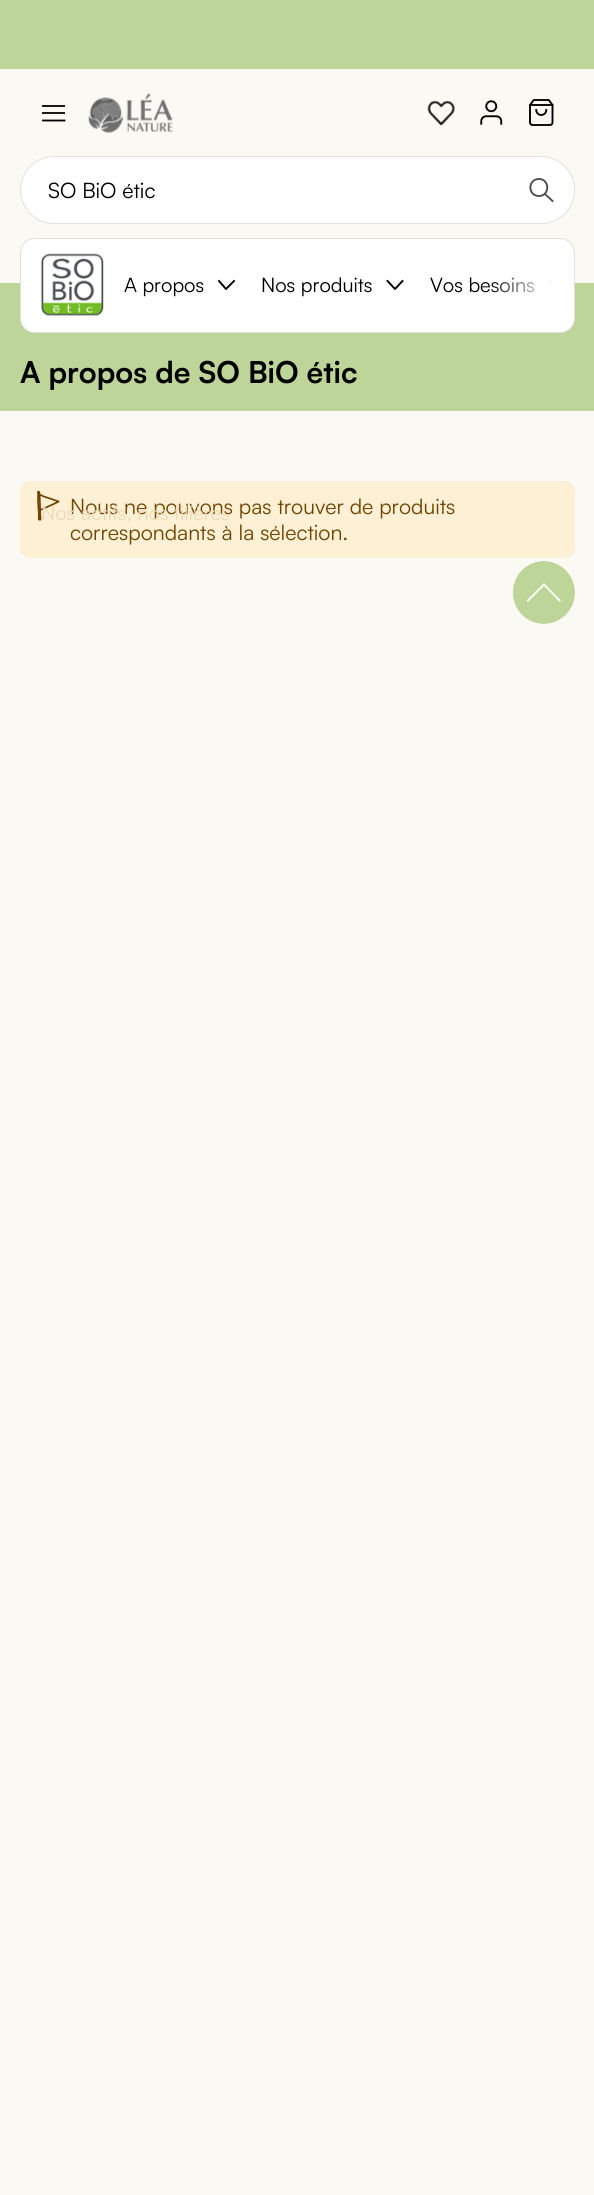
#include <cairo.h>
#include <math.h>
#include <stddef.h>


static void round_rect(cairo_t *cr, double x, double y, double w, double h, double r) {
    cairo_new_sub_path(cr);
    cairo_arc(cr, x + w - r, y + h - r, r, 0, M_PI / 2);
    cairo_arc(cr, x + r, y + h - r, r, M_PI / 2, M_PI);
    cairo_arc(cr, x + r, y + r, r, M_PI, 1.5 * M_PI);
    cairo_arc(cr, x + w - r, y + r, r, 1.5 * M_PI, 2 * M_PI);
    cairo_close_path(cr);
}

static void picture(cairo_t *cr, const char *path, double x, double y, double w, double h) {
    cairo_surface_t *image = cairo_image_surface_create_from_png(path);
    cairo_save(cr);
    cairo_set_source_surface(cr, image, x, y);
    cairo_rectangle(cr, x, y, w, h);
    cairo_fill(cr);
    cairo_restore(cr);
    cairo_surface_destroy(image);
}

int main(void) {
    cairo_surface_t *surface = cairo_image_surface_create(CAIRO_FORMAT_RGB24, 594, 2195);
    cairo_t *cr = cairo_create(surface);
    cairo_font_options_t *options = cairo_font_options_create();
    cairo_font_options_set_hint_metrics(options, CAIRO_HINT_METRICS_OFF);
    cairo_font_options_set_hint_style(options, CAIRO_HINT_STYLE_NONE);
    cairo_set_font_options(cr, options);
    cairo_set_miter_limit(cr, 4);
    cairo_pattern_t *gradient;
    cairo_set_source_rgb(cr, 0.984, 0.973, 0.957);
    cairo_paint(cr);
    cairo_set_source_rgb(cr, 0.745, 0.835, 0.6);
    cairo_rectangle(cr, 0, 0, 594, 69);
    cairo_fill(cr);
    cairo_set_source_rgb(cr, 0.098, 0.098, 0.094);
    cairo_rectangle(cr, 42, 112, 23, 2);
    cairo_fill(cr);
    cairo_rectangle(cr, 42, 105, 23, 2);
    cairo_fill(cr);
    cairo_new_path(cr);
    cairo_move_to(cr, 43, 120.5);
    cairo_line_to(cr, 64.5, 120.5);
    cairo_set_source_rgb(cr, 0, 0, 0);
    cairo_set_line_width(cr, 1.8);
    cairo_set_line_cap(cr, CAIRO_LINE_CAP_SQUARE);
    cairo_set_line_join(cr, CAIRO_LINE_JOIN_ROUND);
    cairo_stroke(cr);
    picture(cr, "img1.png", 88, 93, 85, 40);
    picture(cr, "img2.png", 427, 100, 28, 26);
    picture(cr, "img3.png", 480, 100, 23, 25);
    picture(cr, "img4.png", 529, 99, 25, 27);
    cairo_set_source_rgb(cr, 1, 1, 1);
    round_rect(cr, 20, 156, 555, 68, 34);
    cairo_fill(cr);
    round_rect(cr, 20.5, 156.5, 554, 67, 33.5);
    cairo_set_source_rgba(cr, 0, 0, 0, 0.12);
    cairo_set_line_width(cr, 1);
    cairo_set_line_cap(cr, CAIRO_LINE_CAP_BUTT);
    cairo_set_line_join(cr, CAIRO_LINE_JOIN_MITER);
    cairo_stroke(cr);
    cairo_select_font_face(cr, "Satoshi", CAIRO_FONT_SLANT_NORMAL, CAIRO_FONT_WEIGHT_NORMAL);
    cairo_set_font_size(cr, 21.25);
    cairo_set_source_rgb(cr, 0, 0, 0);
    cairo_move_to(cr, 48, 198);
    cairo_show_text(cr, "SO BiO étic");
    cairo_new_path(cr);
    cairo_move_to(cr, 539, 196);
    cairo_curve_to(cr, 550, 196, 550, 179, 539, 179);
    cairo_curve_to(cr, 527.5, 179, 527.5, 196, 539, 196);
    cairo_close_path(cr);
    cairo_set_source_rgb(cr, 0.302, 0.302, 0.302);
    cairo_set_line_width(cr, 1.9);
    cairo_set_line_cap(cr, CAIRO_LINE_CAP_ROUND);
    cairo_set_line_join(cr, CAIRO_LINE_JOIN_ROUND);
    cairo_stroke(cr);
    cairo_new_path(cr);
    cairo_move_to(cr, 552.5, 201);
    cairo_line_to(cr, 545.5, 194.5);
    cairo_set_line_cap(cr, CAIRO_LINE_CAP_SQUARE);
    cairo_set_line_join(cr, CAIRO_LINE_JOIN_MITER);
    cairo_stroke(cr);
    cairo_set_source_rgb(cr, 0.745, 0.835, 0.6);
    cairo_rectangle(cr, 0, 283, 594, 128);
    cairo_fill(cr);
    cairo_set_source_rgb(cr, 1, 1, 1);
    round_rect(cr, 20, 238, 555, 95, 15);
    cairo_fill(cr);
    round_rect(cr, 20.5, 238.5, 554, 94, 14.5);
    cairo_set_source_rgba(cr, 0, 0, 0, 0.12);
    cairo_set_line_width(cr, 1);
    cairo_set_line_cap(cr, CAIRO_LINE_CAP_BUTT);
    cairo_stroke(cr);
    picture(cr, "img5.png", 41, 253, 63, 63);
    cairo_set_font_size(cr, 20);
    cairo_set_source_rgb(cr, 0, 0, 0);
    cairo_move_to(cr, 124, 292);
    cairo_show_text(cr, "A propos");
    cairo_new_path(cr);
    cairo_move_to(cr, 219, 281);
    cairo_line_to(cr, 226, 289);
    cairo_line_to(cr, 234, 281);
    cairo_set_line_width(cr, 1.9);
    cairo_set_line_cap(cr, CAIRO_LINE_CAP_SQUARE);
    cairo_set_line_join(cr, CAIRO_LINE_JOIN_ROUND);
    cairo_stroke(cr);
    cairo_move_to(cr, 261, 292);
    cairo_show_text(cr, "Nos produits");
    cairo_new_path(cr);
    cairo_move_to(cr, 387.5, 281);
    cairo_line_to(cr, 395, 289);
    cairo_line_to(cr, 402.5, 281);
    cairo_stroke(cr);
    cairo_move_to(cr, 430, 292);
    cairo_show_text(cr, "Vos besoins");
    cairo_save(cr);
    cairo_rectangle(cr, 543, 270, 11, 30);
    cairo_clip(cr);
    cairo_new_path(cr);
    cairo_move_to(cr, 550, 281);
    cairo_line_to(cr, 557.5, 289);
    cairo_line_to(cr, 565, 281);
    cairo_stroke(cr);
    cairo_restore(cr);
    gradient = cairo_pattern_create_linear(554, 285, 489, 285);
    cairo_pattern_add_color_stop_rgba(gradient, 0, 1, 1, 1, 1);
    cairo_pattern_add_color_stop_rgba(gradient, 1, 1, 1, 1, 0);
    cairo_set_source(cr, gradient);
    cairo_pattern_destroy(gradient);
    cairo_rectangle(cr, 491, 277, 63, 16);
    cairo_fill(cr);
    cairo_set_source_rgb(cr, 0.992, 0.941, 0.835);
    round_rect(cr, 20, 481, 555, 77, 10);
    cairo_fill(cr);
    picture(cr, "img6.png", 37, 490, 23, 31);
    cairo_set_font_size(cr, 21.25);
    cairo_set_source_rgb(cr, 0.435, 0.267, 0);
    cairo_move_to(cr, 70, 514);
    cairo_show_text(cr, "Nous ne pouvons pas trouver de produits");
    cairo_set_font_size(cr, 20);
    cairo_set_source_rgb(cr, 0.918, 0.851, 0.725);
    cairo_move_to(cr, 41, 520);
    cairo_show_text(cr, "Nos actifs, nos filières");
    cairo_select_font_face(cr, "Satoshi", CAIRO_FONT_SLANT_NORMAL, CAIRO_FONT_WEIGHT_BOLD);
    cairo_set_font_size(cr, 30);
    cairo_set_source_rgb(cr, 0, 0, 0);
    cairo_move_to(cr, 20, 383);
    cairo_show_text(cr, "A propos de SO BiO étic");
    cairo_select_font_face(cr, "Satoshi", CAIRO_FONT_SLANT_NORMAL, CAIRO_FONT_WEIGHT_NORMAL);
    cairo_set_font_size(cr, 21.25);
    cairo_set_source_rgb(cr, 0.435, 0.267, 0);
    cairo_move_to(cr, 70, 540);
    cairo_show_text(cr, "correspondants à la sélection.");
    cairo_set_source_rgb(cr, 0.745, 0.835, 0.6);
    round_rect(cr, 513, 561, 62, 63, 31);
    cairo_fill(cr);
    cairo_arc(cr, 543.5, 592.5, 32, 0, 2 * M_PI);
    cairo_set_source_rgb(cr, 0.984, 0.973, 0.957);
    cairo_set_line_width(cr, 1);
    cairo_set_line_cap(cr, CAIRO_LINE_CAP_BUTT);
    cairo_set_line_join(cr, CAIRO_LINE_JOIN_MITER);
    cairo_stroke(cr);
    cairo_new_path(cr);
    cairo_move_to(cr, 559.5, 600.5);
    cairo_line_to(cr, 544, 584.5);
    cairo_line_to(cr, 528, 600.5);
    cairo_set_source_rgb(cr, 1, 1, 1);
    cairo_set_line_width(cr, 1.9);
    cairo_set_line_cap(cr, CAIRO_LINE_CAP_SQUARE);
    cairo_set_line_join(cr, CAIRO_LINE_JOIN_ROUND);
    cairo_stroke(cr);
    cairo_surface_write_to_png(surface, "page.png");
    cairo_font_options_destroy(options);
    cairo_destroy(cr);
    cairo_surface_destroy(surface);
    return 0;
}
